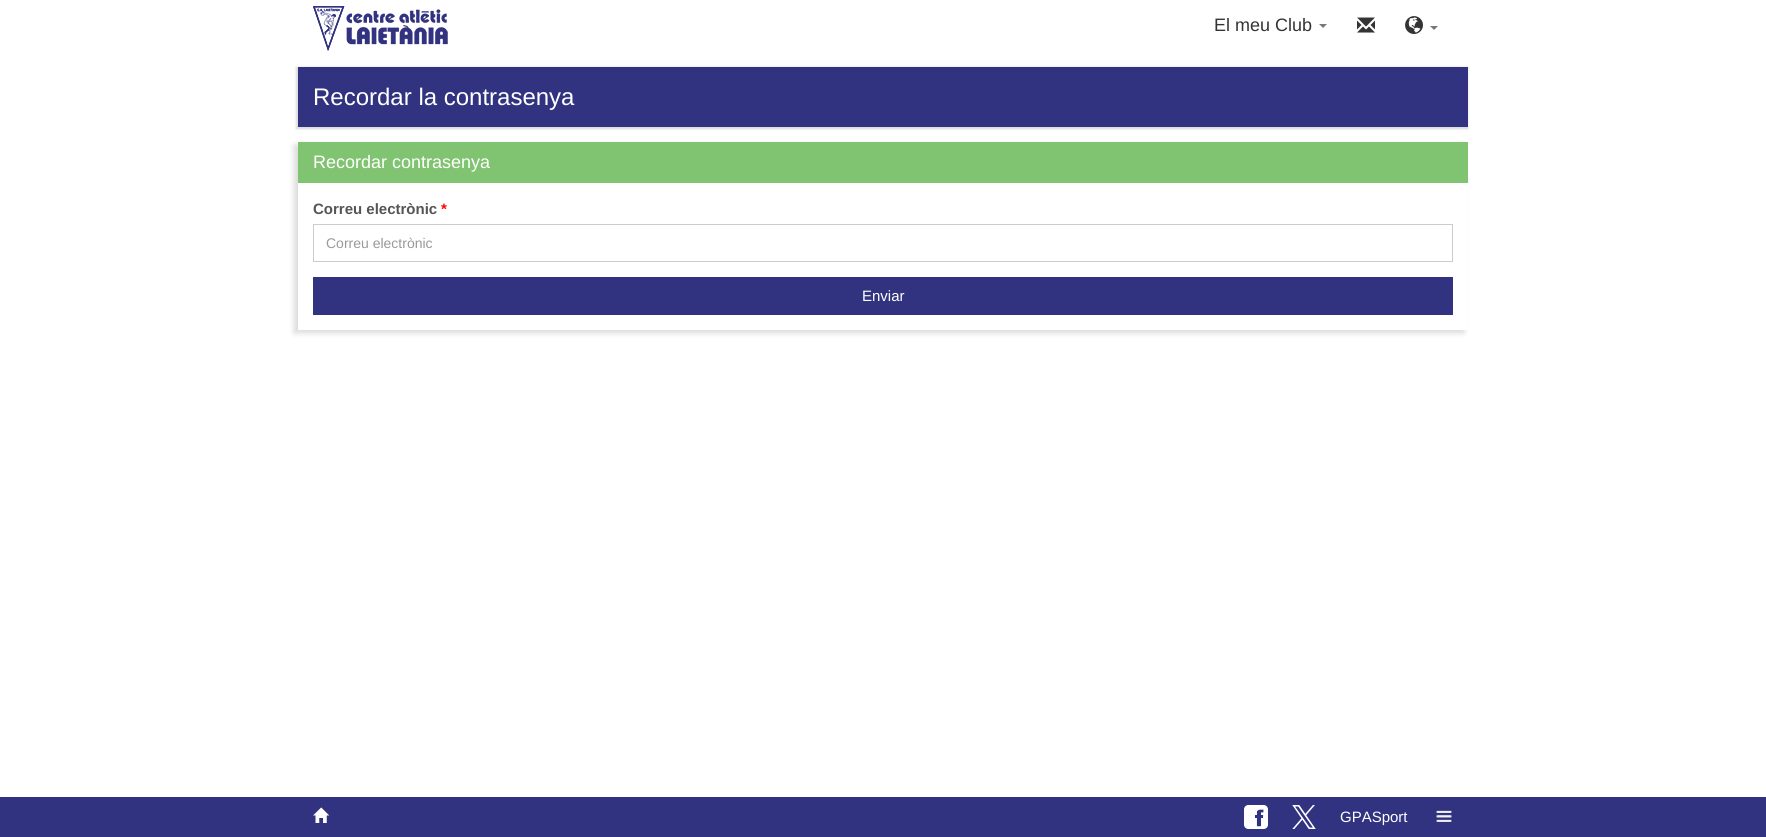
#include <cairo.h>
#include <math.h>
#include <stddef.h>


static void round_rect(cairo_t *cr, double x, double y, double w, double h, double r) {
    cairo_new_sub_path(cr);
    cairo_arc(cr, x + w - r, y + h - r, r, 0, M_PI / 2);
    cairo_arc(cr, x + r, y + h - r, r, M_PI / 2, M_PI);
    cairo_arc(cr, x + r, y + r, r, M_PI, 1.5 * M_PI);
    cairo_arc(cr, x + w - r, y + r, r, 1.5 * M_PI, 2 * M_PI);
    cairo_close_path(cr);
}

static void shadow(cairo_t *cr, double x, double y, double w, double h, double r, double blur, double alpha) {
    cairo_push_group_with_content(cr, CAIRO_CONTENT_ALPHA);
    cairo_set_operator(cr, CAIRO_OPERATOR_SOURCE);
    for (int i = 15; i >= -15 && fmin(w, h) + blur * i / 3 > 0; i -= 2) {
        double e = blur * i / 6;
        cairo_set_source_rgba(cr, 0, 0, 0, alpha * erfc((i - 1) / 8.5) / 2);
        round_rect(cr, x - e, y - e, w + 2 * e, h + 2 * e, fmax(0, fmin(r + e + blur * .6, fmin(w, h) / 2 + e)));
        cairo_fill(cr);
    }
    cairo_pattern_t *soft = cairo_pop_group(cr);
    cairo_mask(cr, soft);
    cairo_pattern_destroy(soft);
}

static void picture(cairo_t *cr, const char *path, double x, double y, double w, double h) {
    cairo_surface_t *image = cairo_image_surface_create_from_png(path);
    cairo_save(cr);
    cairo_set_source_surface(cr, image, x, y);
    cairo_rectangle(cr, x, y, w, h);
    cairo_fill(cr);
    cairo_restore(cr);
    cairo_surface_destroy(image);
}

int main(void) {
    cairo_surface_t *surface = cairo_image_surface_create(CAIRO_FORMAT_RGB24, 1766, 837);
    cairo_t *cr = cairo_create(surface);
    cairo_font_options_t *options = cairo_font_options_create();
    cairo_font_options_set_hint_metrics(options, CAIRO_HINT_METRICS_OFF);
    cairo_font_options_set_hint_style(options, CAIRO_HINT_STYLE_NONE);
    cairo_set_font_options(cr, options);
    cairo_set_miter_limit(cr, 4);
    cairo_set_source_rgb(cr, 1, 1, 1);
    cairo_paint(cr);
    picture(cr, "img1.png", 313, 6, 135, 45);
    cairo_select_font_face(cr, "Liberation Sans", CAIRO_FONT_SLANT_NORMAL, CAIRO_FONT_WEIGHT_NORMAL);
    cairo_set_font_size(cr, 18);
    cairo_set_source_rgb(cr, 0.204, 0.204, 0.204);
    cairo_move_to(cr, 1214, 31);
    cairo_show_text(cr, "El meu Club");
    cairo_set_source_rgb(cr, 0.467, 0.467, 0.467);
    cairo_new_path(cr);
    cairo_move_to(cr, 1319, 24);
    cairo_line_to(cr, 1327, 24);
    cairo_line_to(cr, 1323, 28);
    cairo_close_path(cr);
    cairo_fill(cr);
    picture(cr, "img2.png", 1357, 17, 18, 16);
    picture(cr, "img3.png", 1405, 16, 18, 18);
    cairo_new_path(cr);
    cairo_move_to(cr, 1430, 26);
    cairo_line_to(cr, 1438, 26);
    cairo_line_to(cr, 1434, 30);
    cairo_close_path(cr);
    cairo_fill(cr);
    cairo_set_source_rgb(cr, 0, 0, 0);
    shadow(cr, 296, 67, 1172, 62, 0, 1, 0.15);
    cairo_set_source_rgb(cr, 0.192, 0.2, 0.502);
    cairo_rectangle(cr, 298, 67, 1170, 60);
    cairo_fill(cr);
    cairo_set_font_size(cr, 24);
    cairo_set_source_rgb(cr, 1, 1, 1);
    cairo_move_to(cr, 313, 105);
    cairo_show_text(cr, "Recordar la contrasenya");
    cairo_save(cr);
    cairo_set_fill_rule(cr, CAIRO_FILL_RULE_EVEN_ODD);
    cairo_new_path(cr);
    cairo_move_to(cr, 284, 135);
    cairo_line_to(cr, 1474, 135);
    cairo_line_to(cr, 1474, 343);
    cairo_line_to(cr, 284, 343);
    cairo_close_path(cr);
    cairo_move_to(cr, 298, 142);
    cairo_line_to(cr, 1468, 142);
    cairo_line_to(cr, 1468, 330);
    cairo_line_to(cr, 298, 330);
    cairo_close_path(cr);
    cairo_clip(cr);
    cairo_set_source_rgb(cr, 0, 0, 0);
    shadow(cr, 294, 145, 1170, 188, 0, 3, 0.15);
    cairo_restore(cr);
    cairo_set_source_rgb(cr, 0.502, 0.765, 0.443);
    cairo_rectangle(cr, 298, 142, 1170, 41);
    cairo_fill(cr);
    cairo_set_font_size(cr, 18);
    cairo_set_source_rgb(cr, 1, 1, 1);
    cairo_move_to(cr, 313, 168);
    cairo_show_text(cr, "Recordar contrasenya");
    cairo_select_font_face(cr, "Liberation Sans", CAIRO_FONT_SLANT_NORMAL, CAIRO_FONT_WEIGHT_BOLD);
    cairo_set_font_size(cr, 15);
    cairo_set_source_rgb(cr, 0.333, 0.333, 0.333);
    cairo_move_to(cr, 313, 214);
    cairo_show_text(cr, "Correu electrònic");
    cairo_set_source_rgb(cr, 1, 0, 0);
    cairo_move_to(cr, 441, 214);
    cairo_show_text(cr, "*");
    cairo_rectangle(cr, 313.5, 224.5, 1139, 37);
    cairo_set_source_rgb(cr, 0.8, 0.8, 0.8);
    cairo_set_line_width(cr, 1);
    cairo_stroke(cr);
    cairo_select_font_face(cr, "Liberation Sans", CAIRO_FONT_SLANT_NORMAL, CAIRO_FONT_WEIGHT_NORMAL);
    cairo_set_font_size(cr, 14);
    cairo_set_source_rgb(cr, 0.6, 0.6, 0.6);
    cairo_move_to(cr, 326, 248);
    cairo_show_text(cr, "Correu electrònic");
    cairo_set_source_rgb(cr, 0.192, 0.2, 0.502);
    cairo_rectangle(cr, 313, 277, 1140, 38);
    cairo_fill(cr);
    cairo_set_font_size(cr, 15);
    cairo_set_source_rgb(cr, 1, 1, 1);
    cairo_move_to(cr, 862, 301);
    cairo_show_text(cr, "Enviar");
    cairo_set_source_rgb(cr, 0.192, 0.2, 0.502);
    cairo_rectangle(cr, 0, 797, 1766, 40);
    cairo_fill(cr);
    picture(cr, "img4.png", 313, 807, 17, 16);
    picture(cr, "img5.png", 1244, 805, 24, 24);
    picture(cr, "img6.png", 1292, 805, 24, 24);
    cairo_set_source_rgb(cr, 1, 1, 1);
    cairo_move_to(cr, 1340, 822);
    cairo_show_text(cr, "GPASport");
    picture(cr, "img7.png", 1436, 810, 16, 12);
    cairo_surface_write_to_png(surface, "page.png");
    cairo_font_options_destroy(options);
    cairo_destroy(cr);
    cairo_surface_destroy(surface);
    return 0;
}
